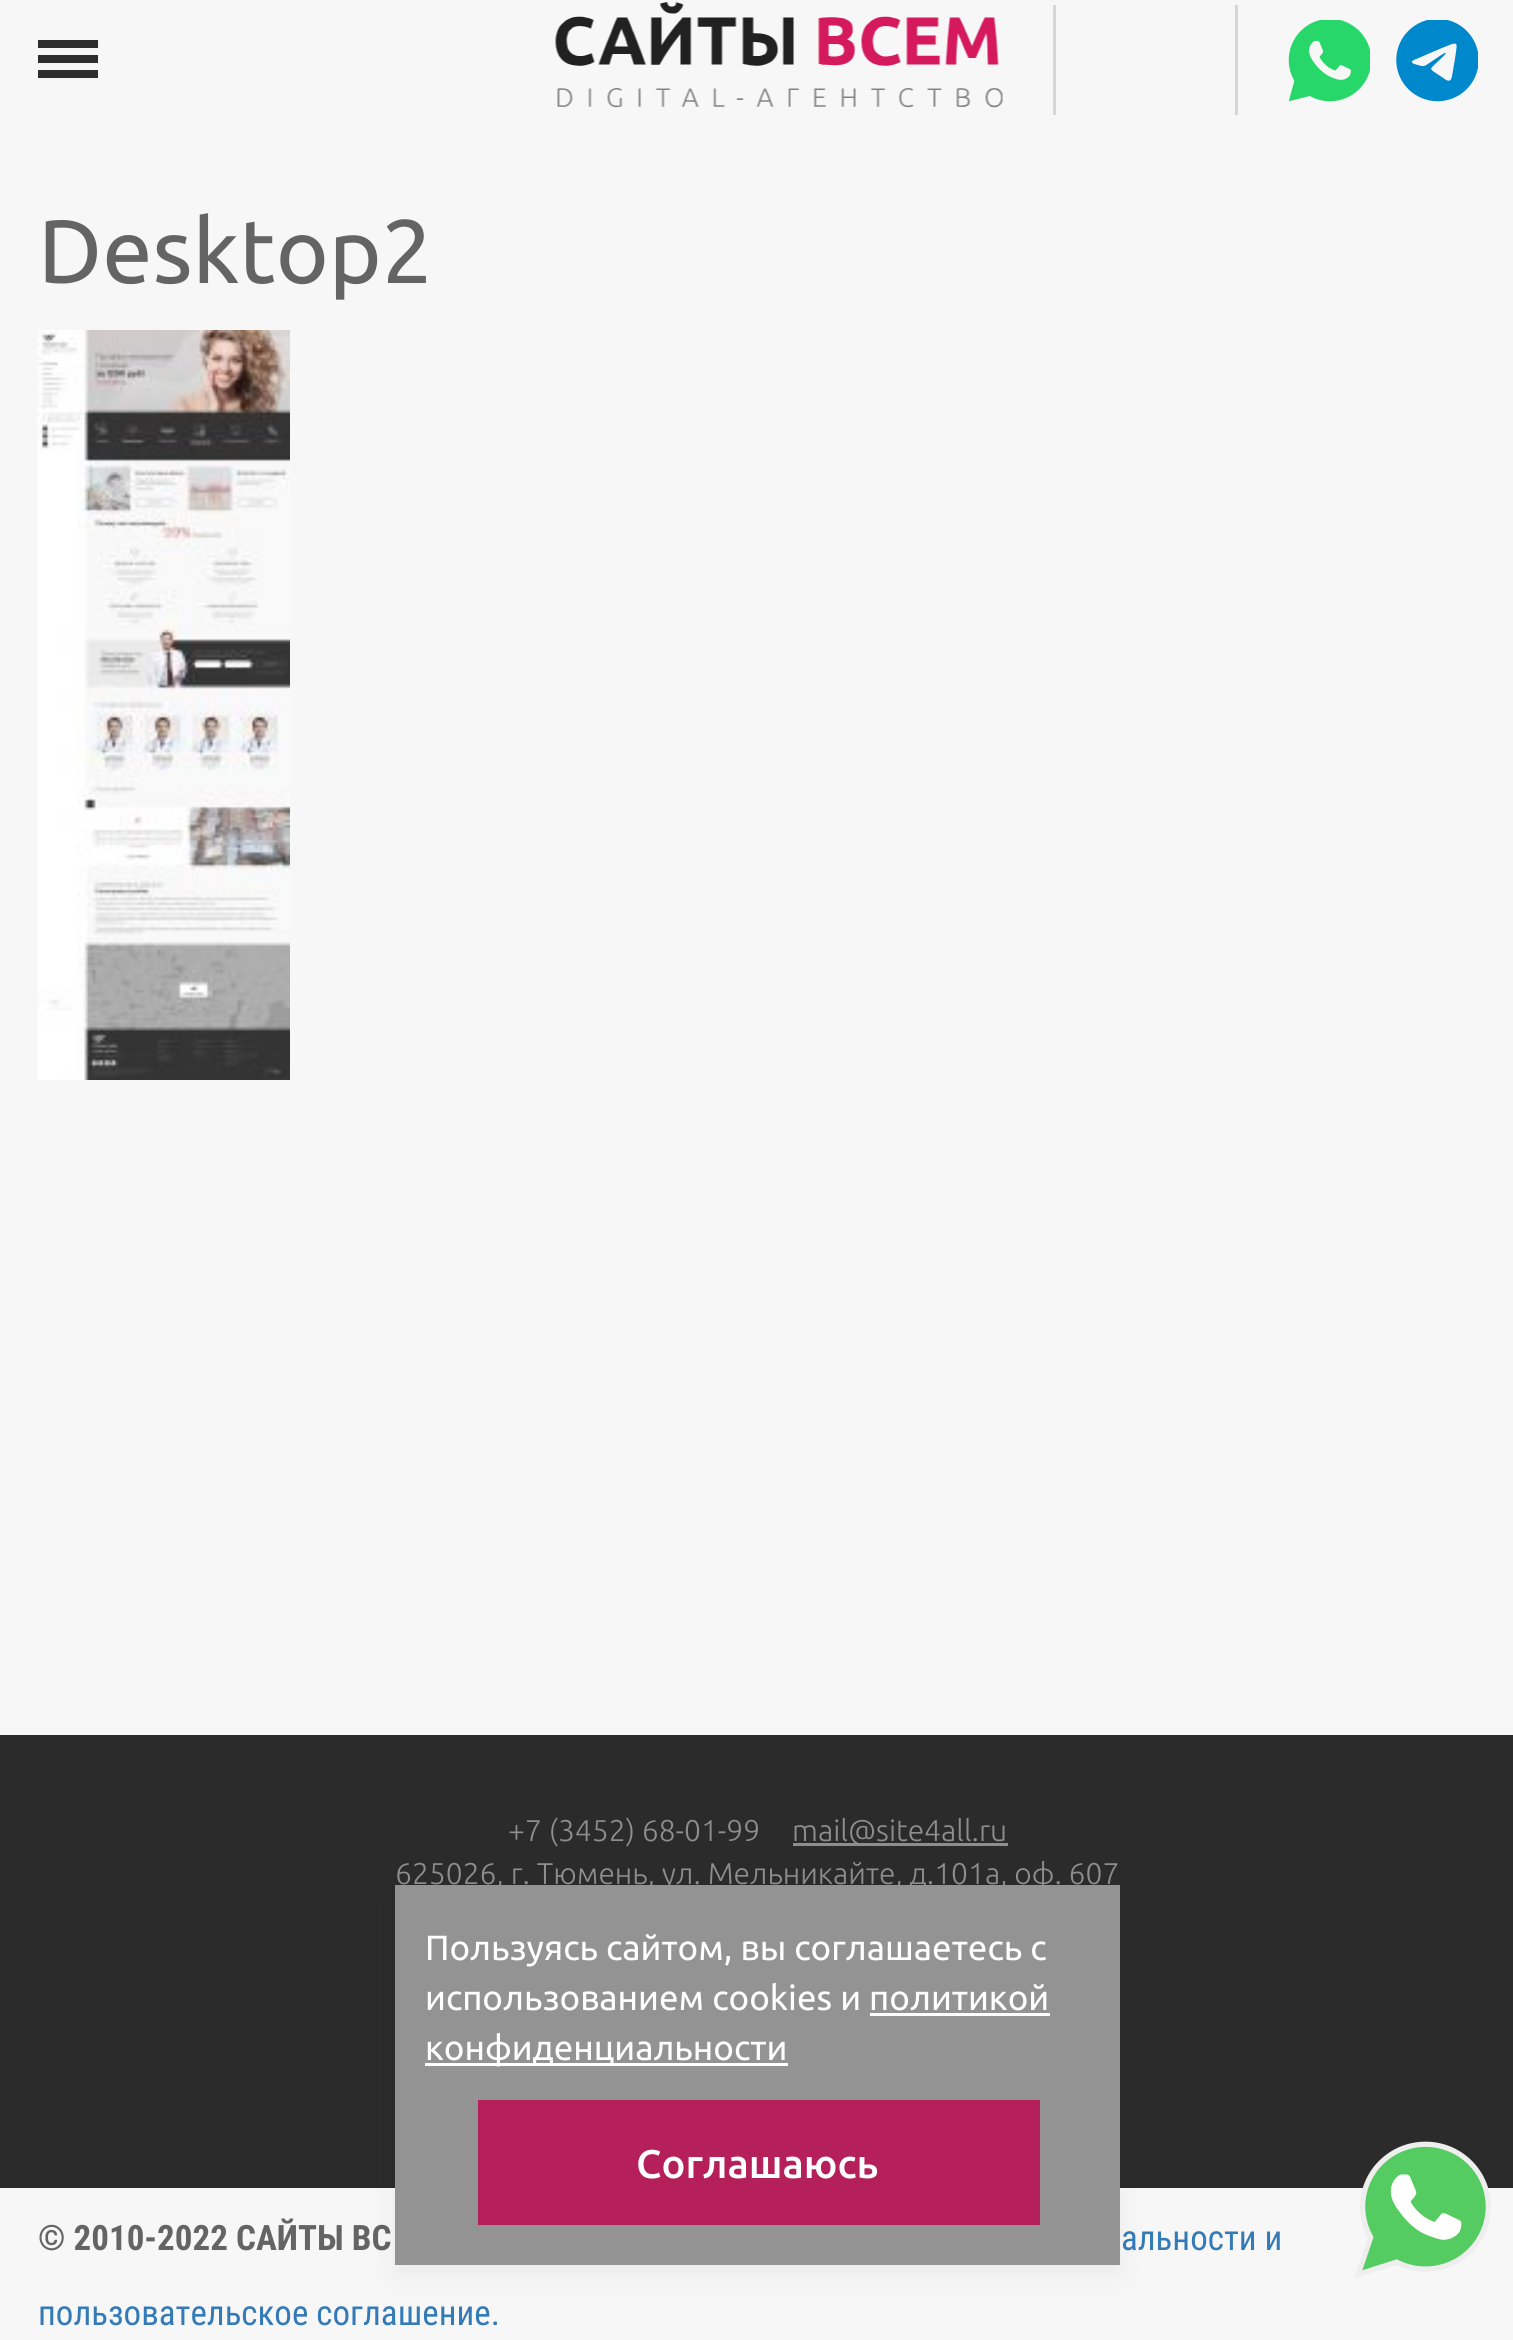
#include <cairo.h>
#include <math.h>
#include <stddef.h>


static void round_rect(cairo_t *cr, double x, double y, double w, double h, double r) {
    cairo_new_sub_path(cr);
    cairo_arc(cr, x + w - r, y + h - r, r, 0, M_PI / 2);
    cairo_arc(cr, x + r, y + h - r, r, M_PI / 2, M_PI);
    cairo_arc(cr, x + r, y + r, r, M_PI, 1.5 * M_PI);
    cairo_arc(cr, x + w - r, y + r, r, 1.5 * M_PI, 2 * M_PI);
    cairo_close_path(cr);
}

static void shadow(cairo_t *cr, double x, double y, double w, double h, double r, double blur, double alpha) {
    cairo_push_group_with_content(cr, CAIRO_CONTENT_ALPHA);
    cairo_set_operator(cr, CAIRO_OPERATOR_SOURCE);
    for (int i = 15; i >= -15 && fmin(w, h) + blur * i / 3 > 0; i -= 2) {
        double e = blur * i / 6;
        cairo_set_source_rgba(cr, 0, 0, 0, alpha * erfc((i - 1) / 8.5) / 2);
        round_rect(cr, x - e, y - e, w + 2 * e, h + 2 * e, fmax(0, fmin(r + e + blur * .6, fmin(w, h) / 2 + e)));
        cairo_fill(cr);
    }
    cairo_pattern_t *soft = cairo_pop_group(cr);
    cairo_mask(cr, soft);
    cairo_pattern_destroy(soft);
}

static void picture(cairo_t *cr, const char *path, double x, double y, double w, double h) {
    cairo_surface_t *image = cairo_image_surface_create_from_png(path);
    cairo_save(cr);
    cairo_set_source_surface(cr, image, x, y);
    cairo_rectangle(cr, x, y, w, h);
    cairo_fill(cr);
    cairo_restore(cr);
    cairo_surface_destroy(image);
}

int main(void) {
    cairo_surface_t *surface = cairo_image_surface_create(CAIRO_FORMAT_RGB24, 1513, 2340);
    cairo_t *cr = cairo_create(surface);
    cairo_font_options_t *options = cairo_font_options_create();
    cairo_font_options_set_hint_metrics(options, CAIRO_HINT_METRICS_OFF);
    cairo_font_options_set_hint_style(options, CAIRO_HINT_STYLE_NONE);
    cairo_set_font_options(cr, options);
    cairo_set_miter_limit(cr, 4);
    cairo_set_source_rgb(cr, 0.965, 0.965, 0.965);
    cairo_paint(cr);
    cairo_set_source_rgb(cr, 0.176, 0.176, 0.176);
    cairo_rectangle(cr, 38, 40, 60, 8);
    cairo_fill(cr);
    cairo_rectangle(cr, 38, 55, 60, 8);
    cairo_fill(cr);
    cairo_rectangle(cr, 38, 70, 60, 8);
    cairo_fill(cr);
    picture(cr, "img1.png", 555, 2, 448, 106);
    cairo_set_source_rgb(cr, 0.839, 0.839, 0.843);
    cairo_rectangle(cr, 1053, 5, 3, 110);
    cairo_fill(cr);
    cairo_rectangle(cr, 1235, 5, 3, 110);
    cairo_fill(cr);
    picture(cr, "img2.png", 1288, 20, 82, 82);
    picture(cr, "img3.png", 1396, 20, 82, 82);
    cairo_select_font_face(cr, "Ubuntu", CAIRO_FONT_SLANT_NORMAL, CAIRO_FONT_WEIGHT_NORMAL);
    cairo_set_font_size(cr, 90);
    cairo_set_source_rgb(cr, 0.392, 0.392, 0.392);
    cairo_move_to(cr, 38, 283);
    cairo_show_text(cr, "Desktop2");
    picture(cr, "img4.png", 37, 330, 253, 750);
    cairo_set_source_rgb(cr, 0.169, 0.169, 0.169);
    cairo_rectangle(cr, 0, 1735, 1513, 453);
    cairo_fill(cr);
    cairo_select_font_face(cr, "Ubuntu Light", CAIRO_FONT_SLANT_NORMAL, CAIRO_FONT_WEIGHT_NORMAL);
    cairo_set_font_size(cr, 30);
    cairo_set_source_rgb(cr, 0.557, 0.557, 0.557);
    cairo_move_to(cr, 508, 1841);
    cairo_show_text(cr, "+7 (3452) 68-01-99");
    cairo_rectangle(cr, 793, 1843, 215, 3);
    cairo_fill(cr);
    cairo_move_to(cr, 792, 1841);
    cairo_show_text(cr, "mail@site4all.ru");
    cairo_move_to(cr, 395, 1884);
    cairo_show_text(cr, "625026, г. Тюмень, ул. Мельникайте, д.101а, оф. 607");
    cairo_select_font_face(cr, "Roboto Condensed", CAIRO_FONT_SLANT_NORMAL, CAIRO_FONT_WEIGHT_BOLD);
    cairo_set_font_size(cr, 35);
    cairo_set_source_rgb(cr, 0.392, 0.392, 0.392);
    cairo_move_to(cr, 38, 2250);
    cairo_show_text(cr, "© 2010-2022 САЙТЫ ВС");
    cairo_select_font_face(cr, "Roboto Condensed", CAIRO_FONT_SLANT_NORMAL, CAIRO_FONT_WEIGHT_NORMAL);
    cairo_set_source_rgb(cr, 0.2, 0.478, 0.718);
    cairo_move_to(cr, 1121, 2250);
    cairo_show_text(cr, "альности и");
    cairo_move_to(cr, 38, 2325);
    cairo_show_text(cr, "пользовательское соглашение.");
    cairo_set_source_rgb(cr, 0, 0, 0);
    shadow(cr, 395, 1895, 725, 380, 0, 15, 0.05);
    cairo_set_source_rgb(cr, 0.576, 0.576, 0.576);
    cairo_rectangle(cr, 395, 1885, 725, 380);
    cairo_fill(cr);
    cairo_select_font_face(cr, "Ubuntu", CAIRO_FONT_SLANT_NORMAL, CAIRO_FONT_WEIGHT_NORMAL);
    cairo_set_source_rgb(cr, 1, 1, 1);
    cairo_move_to(cr, 425, 1960);
    cairo_show_text(cr, "Пользуясь сайтом, вы соглашаетесь с");
    cairo_move_to(cr, 425, 2010);
    cairo_show_text(cr, "использованием cookies и политикой");
    cairo_rectangle(cr, 425, 2063, 363, 3);
    cairo_fill(cr);
    cairo_move_to(cr, 425, 2060);
    cairo_show_text(cr, "конфиденциальности");
    cairo_rectangle(cr, 870, 2013, 180, 3);
    cairo_fill(cr);
    cairo_set_source_rgb(cr, 0.71, 0.125, 0.353);
    cairo_rectangle(cr, 478, 2100, 562, 125);
    cairo_fill(cr);
    cairo_select_font_face(cr, "Ubuntu Medium", CAIRO_FONT_SLANT_NORMAL, CAIRO_FONT_WEIGHT_NORMAL);
    cairo_set_font_size(cr, 40);
    cairo_set_source_rgb(cr, 1, 1, 1);
    cairo_move_to(cr, 636, 2178);
    cairo_show_text(cr, "Соглашаюсь");
    picture(cr, "img5.png", 1354, 2141, 137, 137);
    cairo_surface_write_to_png(surface, "page.png");
    cairo_font_options_destroy(options);
    cairo_destroy(cr);
    cairo_surface_destroy(surface);
    return 0;
}
